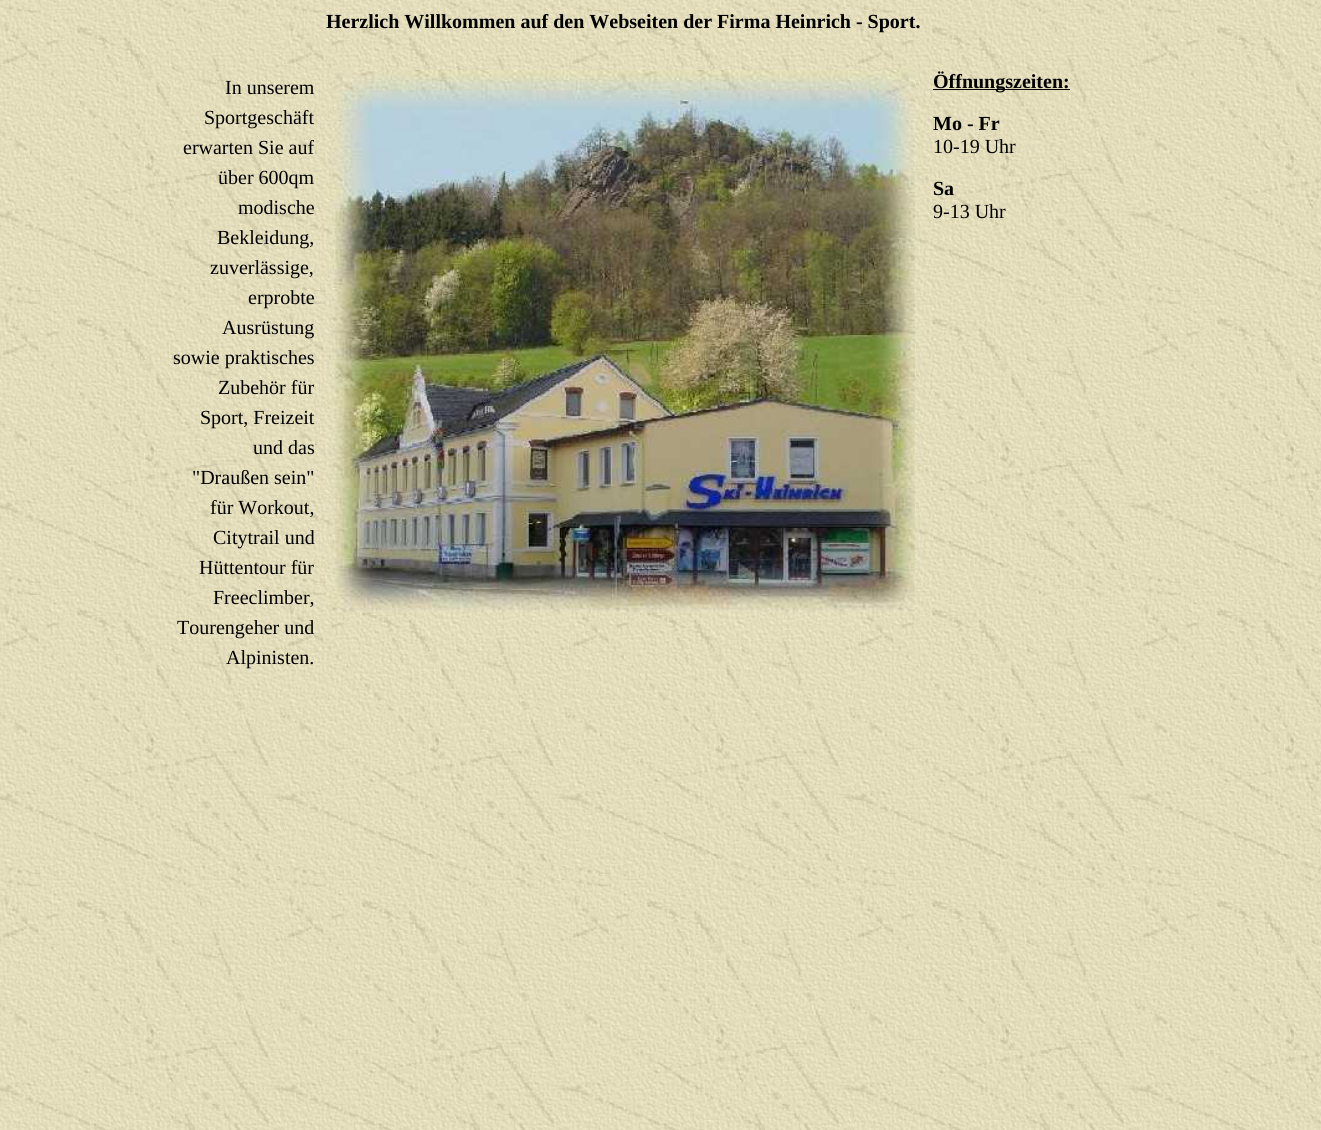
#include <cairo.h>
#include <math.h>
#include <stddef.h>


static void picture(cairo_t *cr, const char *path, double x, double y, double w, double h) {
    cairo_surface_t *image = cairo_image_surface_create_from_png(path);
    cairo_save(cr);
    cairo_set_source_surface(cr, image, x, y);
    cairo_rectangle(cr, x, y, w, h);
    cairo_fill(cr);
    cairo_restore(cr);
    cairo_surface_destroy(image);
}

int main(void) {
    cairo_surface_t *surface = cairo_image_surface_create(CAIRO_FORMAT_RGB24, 1321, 1130);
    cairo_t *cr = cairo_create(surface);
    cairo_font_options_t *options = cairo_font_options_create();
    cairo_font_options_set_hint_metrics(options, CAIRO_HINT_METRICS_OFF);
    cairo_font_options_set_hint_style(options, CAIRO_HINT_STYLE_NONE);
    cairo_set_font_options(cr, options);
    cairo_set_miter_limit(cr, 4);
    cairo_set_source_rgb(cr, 1, 1, 1);
    cairo_paint(cr);
    picture(cr, "img1.png", 0, 0, 1321, 1130);
    cairo_select_font_face(cr, "Liberation Serif", CAIRO_FONT_SLANT_NORMAL, CAIRO_FONT_WEIGHT_BOLD);
    cairo_set_font_size(cr, 20);
    cairo_set_source_rgb(cr, 0, 0, 0);
    cairo_move_to(cr, 326, 28);
    cairo_show_text(cr, "Herzlich Willkommen auf den Webseiten der Firma Heinrich - Sport.");
    cairo_select_font_face(cr, "Liberation Serif", CAIRO_FONT_SLANT_NORMAL, CAIRO_FONT_WEIGHT_NORMAL);
    cairo_move_to(cr, 225, 94);
    cairo_show_text(cr, "In unserem");
    cairo_move_to(cr, 204, 124);
    cairo_show_text(cr, "Sportgeschäft");
    cairo_move_to(cr, 183, 154);
    cairo_show_text(cr, "erwarten Sie auf");
    cairo_move_to(cr, 218, 184);
    cairo_show_text(cr, "über 600qm");
    cairo_move_to(cr, 238, 214);
    cairo_show_text(cr, "modische");
    cairo_move_to(cr, 217, 244);
    cairo_show_text(cr, "Bekleidung,");
    cairo_move_to(cr, 210, 274);
    cairo_show_text(cr, "zuverlässige,");
    cairo_move_to(cr, 248, 304);
    cairo_show_text(cr, "erprobte");
    cairo_move_to(cr, 222, 334);
    cairo_show_text(cr, "Ausrüstung");
    cairo_move_to(cr, 173, 364);
    cairo_show_text(cr, "sowie praktisches");
    cairo_move_to(cr, 218, 394);
    cairo_show_text(cr, "Zubehör für");
    cairo_move_to(cr, 200, 424);
    cairo_show_text(cr, "Sport, Freizeit");
    cairo_move_to(cr, 253, 454);
    cairo_show_text(cr, "und das");
    cairo_move_to(cr, 192, 484);
    cairo_show_text(cr, "\"Draußen sein\"");
    cairo_move_to(cr, 210, 514);
    cairo_show_text(cr, "für Workout,");
    cairo_move_to(cr, 213, 544);
    cairo_show_text(cr, "Citytrail und");
    cairo_move_to(cr, 199, 574);
    cairo_show_text(cr, "Hüttentour für");
    cairo_move_to(cr, 213, 604);
    cairo_show_text(cr, "Freeclimber,");
    cairo_move_to(cr, 177, 634);
    cairo_show_text(cr, "Tourengeher und");
    cairo_move_to(cr, 226, 664);
    cairo_show_text(cr, "Alpinisten.");
    picture(cr, "img2.png", 332, 70, 583, 543);
    cairo_rectangle(cr, 933, 89, 137, 1);
    cairo_fill(cr);
    cairo_select_font_face(cr, "Liberation Serif", CAIRO_FONT_SLANT_NORMAL, CAIRO_FONT_WEIGHT_BOLD);
    cairo_move_to(cr, 933, 88);
    cairo_show_text(cr, "Öffnungszeiten:");
    cairo_move_to(cr, 933, 130);
    cairo_show_text(cr, "Mo - Fr");
    cairo_select_font_face(cr, "Liberation Serif", CAIRO_FONT_SLANT_NORMAL, CAIRO_FONT_WEIGHT_NORMAL);
    cairo_move_to(cr, 933, 153);
    cairo_show_text(cr, "10-19 Uhr");
    cairo_select_font_face(cr, "Liberation Serif", CAIRO_FONT_SLANT_NORMAL, CAIRO_FONT_WEIGHT_BOLD);
    cairo_move_to(cr, 933, 195);
    cairo_show_text(cr, "Sa");
    cairo_select_font_face(cr, "Liberation Serif", CAIRO_FONT_SLANT_NORMAL, CAIRO_FONT_WEIGHT_NORMAL);
    cairo_move_to(cr, 933, 218);
    cairo_show_text(cr, "9-13 Uhr");
    cairo_surface_write_to_png(surface, "page.png");
    cairo_font_options_destroy(options);
    cairo_destroy(cr);
    cairo_surface_destroy(surface);
    return 0;
}
